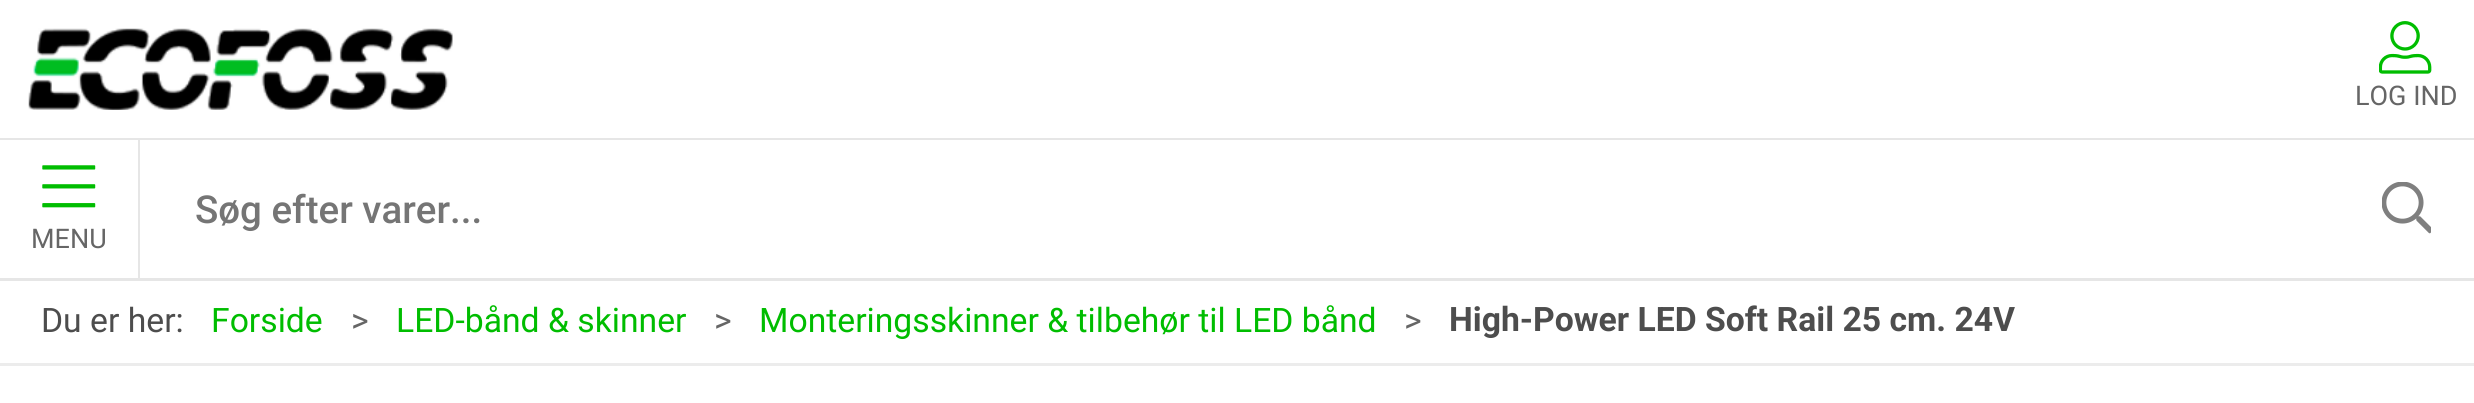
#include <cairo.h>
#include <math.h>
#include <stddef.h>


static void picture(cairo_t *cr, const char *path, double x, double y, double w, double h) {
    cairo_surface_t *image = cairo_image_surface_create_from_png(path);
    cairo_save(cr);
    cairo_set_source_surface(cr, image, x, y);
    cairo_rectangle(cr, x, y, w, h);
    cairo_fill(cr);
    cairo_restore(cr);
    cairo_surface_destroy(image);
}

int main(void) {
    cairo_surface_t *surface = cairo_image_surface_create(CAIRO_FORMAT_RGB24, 2474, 403);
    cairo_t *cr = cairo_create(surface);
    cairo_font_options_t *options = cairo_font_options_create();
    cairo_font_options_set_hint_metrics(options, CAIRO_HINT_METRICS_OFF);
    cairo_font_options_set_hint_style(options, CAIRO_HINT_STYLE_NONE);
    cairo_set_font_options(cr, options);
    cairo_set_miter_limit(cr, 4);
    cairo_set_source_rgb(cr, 1, 1, 1);
    cairo_paint(cr);
    cairo_set_source_rgb(cr, 0.902, 0.902, 0.902);
    cairo_rectangle(cr, 0, 138, 2474, 2);
    cairo_fill(cr);
    picture(cr, "img1.png", 28, 28, 425, 82);
    picture(cr, "img2.png", 2379, 21, 53, 53);
    cairo_select_font_face(cr, "Roboto", CAIRO_FONT_SLANT_NORMAL, CAIRO_FONT_WEIGHT_NORMAL);
    cairo_set_font_size(cr, 27);
    cairo_set_source_rgb(cr, 0.4, 0.4, 0.4);
    cairo_move_to(cr, 2355, 105);
    cairo_show_text(cr, "LOG IND");
    cairo_set_source_rgb(cr, 0.902, 0.902, 0.902);
    cairo_rectangle(cr, 0, 278, 2474, 3);
    cairo_fill(cr);
    cairo_select_font_face(cr, "Roboto Medium", CAIRO_FONT_SLANT_NORMAL, CAIRO_FONT_WEIGHT_NORMAL);
    cairo_set_font_size(cr, 38.5);
    cairo_set_source_rgb(cr, 0.459, 0.459, 0.459);
    cairo_move_to(cr, 195, 223);
    cairo_show_text(cr, "Søg efter varer...");
    picture(cr, "img3.png", 2382, 182, 49, 52);
    cairo_set_source_rgb(cr, 0.902, 0.902, 0.902);
    cairo_rectangle(cr, 138, 140, 2, 138);
    cairo_fill(cr);
    picture(cr, "img4.png", 42, 165, 54, 43);
    cairo_select_font_face(cr, "Roboto", CAIRO_FONT_SLANT_NORMAL, CAIRO_FONT_WEIGHT_NORMAL);
    cairo_set_font_size(cr, 27);
    cairo_set_source_rgb(cr, 0.4, 0.4, 0.4);
    cairo_move_to(cr, 31, 248);
    cairo_show_text(cr, "MENU");
    cairo_set_source_rgb(cr, 0.925, 0.925, 0.925);
    cairo_rectangle(cr, 0, 363, 2474, 3);
    cairo_fill(cr);
    cairo_set_font_size(cr, 33.7);
    cairo_set_source_rgb(cr, 0.302, 0.302, 0.302);
    cairo_move_to(cr, 41, 332);
    cairo_show_text(cr, "Du er her:");
    cairo_set_source_rgb(cr, 0, 0.741, 0);
    cairo_move_to(cr, 211, 332);
    cairo_show_text(cr, "Forside");
    cairo_set_source_rgb(cr, 0.4, 0.4, 0.4);
    cairo_move_to(cr, 351, 332);
    cairo_show_text(cr, ">");
    cairo_set_source_rgb(cr, 0, 0.741, 0);
    cairo_move_to(cr, 396, 332);
    cairo_show_text(cr, "LED-bånd & skinner");
    cairo_set_source_rgb(cr, 0.4, 0.4, 0.4);
    cairo_move_to(cr, 714, 332);
    cairo_show_text(cr, ">");
    cairo_set_source_rgb(cr, 0, 0.741, 0);
    cairo_move_to(cr, 759, 332);
    cairo_show_text(cr, "Monteringsskinner & tilbehør til LED bånd");
    cairo_set_source_rgb(cr, 0.4, 0.4, 0.4);
    cairo_move_to(cr, 1404, 332);
    cairo_show_text(cr, ">");
    cairo_select_font_face(cr, "Roboto", CAIRO_FONT_SLANT_NORMAL, CAIRO_FONT_WEIGHT_BOLD);
    cairo_set_source_rgb(cr, 0.302, 0.302, 0.302);
    cairo_move_to(cr, 1449, 331);
    cairo_show_text(cr, "High-Power LED Soft Rail 25 cm. 24V");
    cairo_surface_write_to_png(surface, "page.png");
    cairo_font_options_destroy(options);
    cairo_destroy(cr);
    cairo_surface_destroy(surface);
    return 0;
}
